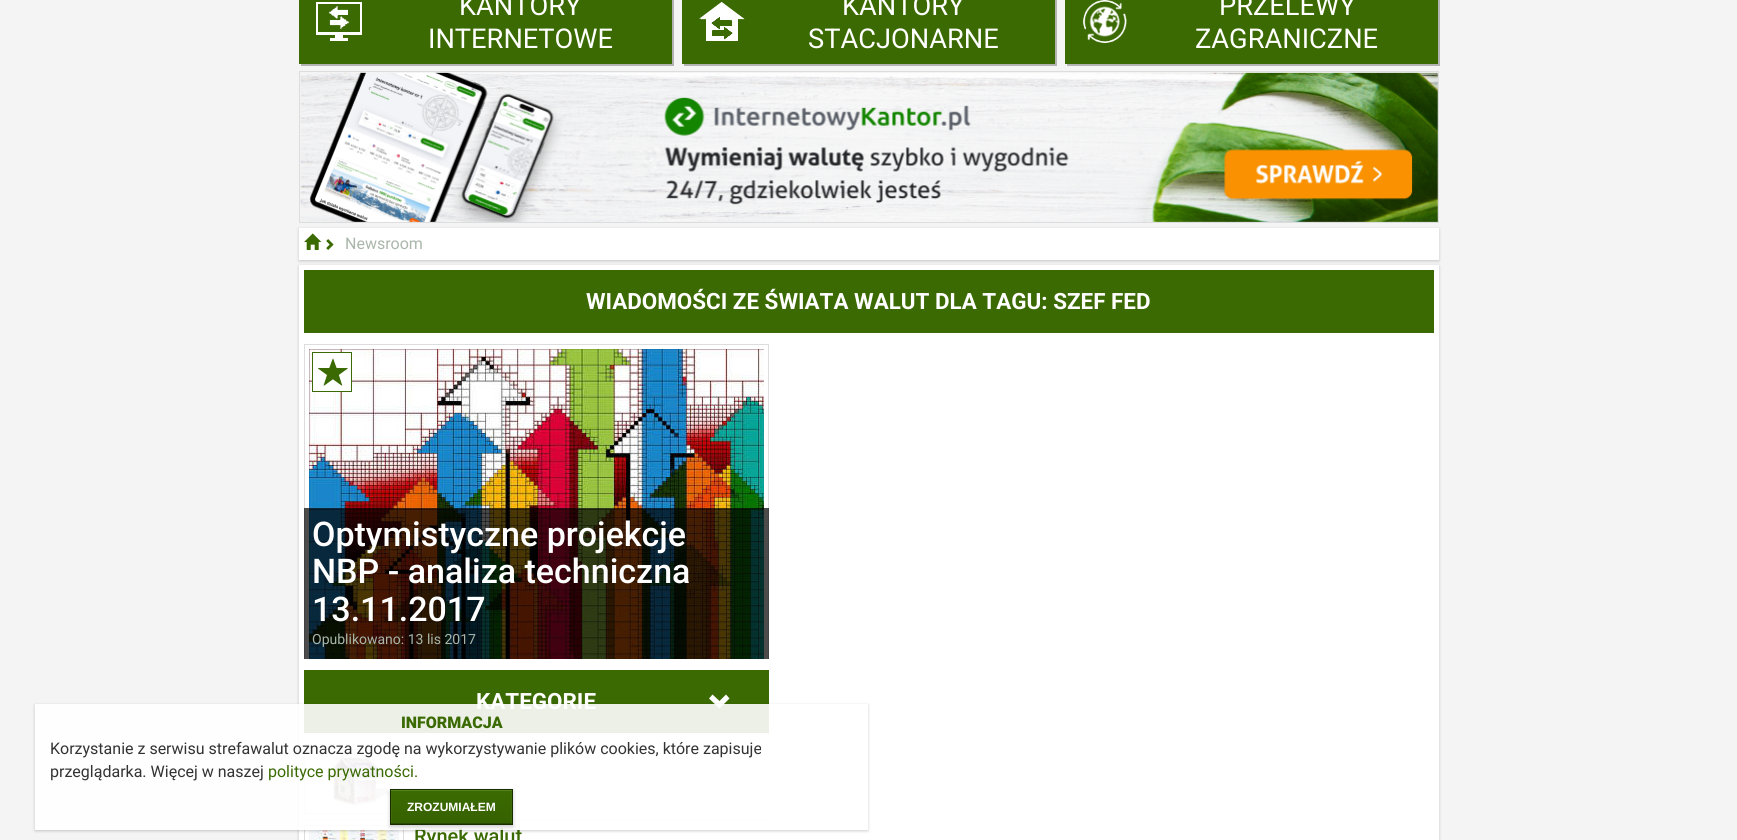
#include <cairo.h>
#include <math.h>
#include <stddef.h>


static void round_rect(cairo_t *cr, double x, double y, double w, double h, double r) {
    cairo_new_sub_path(cr);
    cairo_arc(cr, x + w - r, y + h - r, r, 0, M_PI / 2);
    cairo_arc(cr, x + r, y + h - r, r, M_PI / 2, M_PI);
    cairo_arc(cr, x + r, y + r, r, M_PI, 1.5 * M_PI);
    cairo_arc(cr, x + w - r, y + r, r, 1.5 * M_PI, 2 * M_PI);
    cairo_close_path(cr);
}

static void shadow(cairo_t *cr, double x, double y, double w, double h, double r, double blur, double alpha) {
    cairo_push_group_with_content(cr, CAIRO_CONTENT_ALPHA);
    cairo_set_operator(cr, CAIRO_OPERATOR_SOURCE);
    for (int i = 15; i >= -15 && fmin(w, h) + blur * i / 3 > 0; i -= 2) {
        double e = blur * i / 6;
        cairo_set_source_rgba(cr, 0, 0, 0, alpha * erfc((i - 1) / 8.5) / 2);
        round_rect(cr, x - e, y - e, w + 2 * e, h + 2 * e, fmax(0, fmin(r + e + blur * .6, fmin(w, h) / 2 + e)));
        cairo_fill(cr);
    }
    cairo_pattern_t *soft = cairo_pop_group(cr);
    cairo_mask(cr, soft);
    cairo_pattern_destroy(soft);
}

static void picture(cairo_t *cr, const char *path, double x, double y, double w, double h) {
    cairo_surface_t *image = cairo_image_surface_create_from_png(path);
    cairo_save(cr);
    cairo_set_source_surface(cr, image, x, y);
    cairo_rectangle(cr, x, y, w, h);
    cairo_fill(cr);
    cairo_restore(cr);
    cairo_surface_destroy(image);
}

int main(void) {
    cairo_surface_t *surface = cairo_image_surface_create(CAIRO_FORMAT_RGB24, 1737, 840);
    cairo_t *cr = cairo_create(surface);
    cairo_font_options_t *options = cairo_font_options_create();
    cairo_font_options_set_hint_metrics(options, CAIRO_HINT_METRICS_OFF);
    cairo_font_options_set_hint_style(options, CAIRO_HINT_STYLE_NONE);
    cairo_set_font_options(cr, options);
    cairo_set_miter_limit(cr, 4);
    cairo_pattern_t *gradient;
    cairo_set_source_rgb(cr, 0.957, 0.957, 0.957);
    cairo_paint(cr);
    cairo_set_source_rgb(cr, 0.702, 0.702, 0.702);
    cairo_new_path(cr);
    cairo_move_to(cr, 301, 64);
    cairo_line_to(cr, 301, 66);
    cairo_line_to(cr, 674, 66);
    cairo_line_to(cr, 674, -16);
    cairo_line_to(cr, 672, -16);
    cairo_line_to(cr, 672, 64);
    cairo_close_path(cr);
    cairo_fill(cr);
    cairo_set_source_rgb(cr, 0.227, 0.416, 0.004);
    cairo_rectangle(cr, 299, 0, 373, 64);
    cairo_fill(cr);
    picture(cr, "img1.png", 316, 2, 46, 39);
    cairo_select_font_face(cr, "Roboto", CAIRO_FONT_SLANT_NORMAL, CAIRO_FONT_WEIGHT_NORMAL);
    cairo_set_font_size(cr, 27.25);
    cairo_set_source_rgb(cr, 1, 1, 1);
    cairo_move_to(cr, 459, 15);
    cairo_show_text(cr, "KANTORY");
    cairo_move_to(cr, 428, 48);
    cairo_show_text(cr, "INTERNETOWE");
    cairo_set_source_rgb(cr, 0.702, 0.702, 0.702);
    cairo_new_path(cr);
    cairo_move_to(cr, 684, 64);
    cairo_line_to(cr, 684, 66);
    cairo_line_to(cr, 1057, 66);
    cairo_line_to(cr, 1057, -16);
    cairo_line_to(cr, 1055, -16);
    cairo_line_to(cr, 1055, 64);
    cairo_close_path(cr);
    cairo_fill(cr);
    cairo_set_source_rgb(cr, 0.227, 0.416, 0.004);
    cairo_rectangle(cr, 682, 0, 373, 64);
    cairo_fill(cr);
    picture(cr, "img2.png", 699, 2, 46, 39);
    cairo_set_source_rgb(cr, 1, 1, 1);
    cairo_move_to(cr, 842, 15);
    cairo_show_text(cr, "KANTORY");
    cairo_move_to(cr, 808, 48);
    cairo_show_text(cr, "STACJONARNE");
    cairo_set_source_rgb(cr, 0.702, 0.702, 0.702);
    cairo_new_path(cr);
    cairo_move_to(cr, 1067, 64);
    cairo_line_to(cr, 1067, 66);
    cairo_line_to(cr, 1440, 66);
    cairo_line_to(cr, 1440, -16);
    cairo_line_to(cr, 1438, -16);
    cairo_line_to(cr, 1438, 64);
    cairo_close_path(cr);
    cairo_fill(cr);
    cairo_set_source_rgb(cr, 0.227, 0.416, 0.004);
    cairo_rectangle(cr, 1065, 0, 373, 64);
    cairo_fill(cr);
    picture(cr, "img3.png", 1083, 0, 44, 43);
    cairo_set_source_rgb(cr, 1, 1, 1);
    cairo_move_to(cr, 1219, 15);
    cairo_show_text(cr, "PRZELEWY");
    cairo_move_to(cr, 1195, 48);
    cairo_show_text(cr, "ZAGRANICZNE");
    cairo_rectangle(cr, 299.5, 71.5, 1139, 151);
    cairo_set_source_rgb(cr, 0.867, 0.867, 0.867);
    cairo_set_line_width(cr, 1);
    cairo_stroke(cr);
    picture(cr, "img4.png", 300, 72, 1138, 150);
    cairo_set_source_rgb(cr, 0, 0, 0);
    shadow(cr, 299, 266, 1140, 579, 0, 1.5, 0.2);
    cairo_set_source_rgb(cr, 1, 1, 1);
    cairo_rectangle(cr, 299, 265, 1140, 575);
    cairo_fill(cr);
    cairo_set_source_rgb(cr, 0, 0, 0);
    shadow(cr, 299, 229, 1140, 32, 0, 1.5, 0.2);
    cairo_set_source_rgb(cr, 1, 1, 1);
    cairo_rectangle(cr, 299, 228, 1140, 32);
    cairo_fill(cr);
    picture(cr, "img5.png", 304, 233, 18, 17);
    picture(cr, "img6.png", 326, 239, 8, 11);
    cairo_set_font_size(cr, 16);
    cairo_set_source_rgb(cr, 0.667, 0.714, 0.667);
    cairo_move_to(cr, 345, 249);
    cairo_show_text(cr, "Newsroom");
    cairo_set_source_rgb(cr, 0.227, 0.416, 0.004);
    cairo_rectangle(cr, 304, 270, 1130, 63);
    cairo_fill(cr);
    cairo_select_font_face(cr, "Roboto", CAIRO_FONT_SLANT_NORMAL, CAIRO_FONT_WEIGHT_BOLD);
    cairo_set_font_size(cr, 22.4);
    cairo_set_source_rgb(cr, 1, 1, 1);
    cairo_move_to(cr, 586, 309);
    cairo_show_text(cr, "WIADOMOŚCI ZE ŚWIATA WALUT DLA TAGU: SZEF FED");
    cairo_save(cr);
    cairo_rectangle(cr, 304, 344, 465, 315);
    cairo_clip(cr);
    cairo_rectangle(cr, 304.5, 344.5, 464, 330);
    cairo_set_source_rgb(cr, 0.867, 0.867, 0.867);
    cairo_stroke(cr);
    cairo_restore(cr);
    picture(cr, "img8.png", 309, 349, 455, 310);
    cairo_rectangle(cr, 312.5, 352.5, 39, 39);
    cairo_fill_preserve(cr);
    cairo_set_source_rgb(cr, 0.227, 0.416, 0.004);
    cairo_stroke(cr);
    picture(cr, "img7.png", 318, 358, 30, 28);
    cairo_set_source_rgba(cr, 0, 0, 0, 0.7);
    cairo_rectangle(cr, 304, 508, 465, 151);
    cairo_fill(cr);
    cairo_select_font_face(cr, "Roboto Medium", CAIRO_FONT_SLANT_NORMAL, CAIRO_FONT_WEIGHT_NORMAL);
    cairo_set_font_size(cr, 34);
    cairo_set_source_rgb(cr, 1, 1, 1);
    cairo_move_to(cr, 312, 546);
    cairo_show_text(cr, "Optymistyczne projekcje");
    cairo_move_to(cr, 312, 583);
    cairo_show_text(cr, "NBP - analiza techniczna");
    cairo_move_to(cr, 312, 621);
    cairo_show_text(cr, "13.11.2017");
    cairo_select_font_face(cr, "Roboto", CAIRO_FONT_SLANT_NORMAL, CAIRO_FONT_WEIGHT_NORMAL);
    cairo_set_font_size(cr, 14);
    cairo_set_source_rgb(cr, 0.667, 0.714, 0.667);
    cairo_move_to(cr, 312, 644);
    cairo_show_text(cr, "Opublikowano: 13 lis 2017");
    cairo_set_source_rgb(cr, 0.227, 0.416, 0.004);
    cairo_rectangle(cr, 304, 670, 465, 63);
    cairo_fill(cr);
    cairo_select_font_face(cr, "Roboto", CAIRO_FONT_SLANT_NORMAL, CAIRO_FONT_WEIGHT_BOLD);
    cairo_set_font_size(cr, 22.4);
    cairo_set_source_rgb(cr, 1, 1, 1);
    cairo_move_to(cr, 476, 709);
    cairo_show_text(cr, "KATEGORIE");
    cairo_new_path(cr);
    cairo_move_to(cr, 729.5, 698.5);
    cairo_line_to(cr, 719.5, 708.5);
    cairo_line_to(cr, 709, 698.5);
    cairo_line_to(cr, 712.5, 694.5);
    cairo_line_to(cr, 719.5, 701);
    cairo_line_to(cr, 726, 694.5);
    cairo_close_path(cr);
    cairo_fill(cr);
    cairo_set_source_rgb(cr, 0.91, 0.91, 0.91);
    cairo_rectangle(cr, 304, 819, 465, 1);
    cairo_fill(cr);
    cairo_rectangle(cr, 304.5, 744.5, 99, 69);
    cairo_set_source_rgb(cr, 0.867, 0.867, 0.867);
    cairo_stroke(cr);
    picture(cr, "img9.png", 325, 757, 72, 50);
    cairo_rectangle(cr, 304.5, 825.5, 99, 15);
    cairo_stroke(cr);
    picture(cr, "img10.png", 309, 830, 90, 10);
    cairo_select_font_face(cr, "Roboto Medium", CAIRO_FONT_SLANT_NORMAL, CAIRO_FONT_WEIGHT_NORMAL);
    cairo_set_font_size(cr, 20);
    cairo_set_source_rgb(cr, 0.227, 0.416, 0.004);
    cairo_move_to(cr, 414, 843);
    cairo_show_text(cr, "Rynek walut");
    cairo_save(cr);
    cairo_set_fill_rule(cr, CAIRO_FILL_RULE_EVEN_ODD);
    cairo_new_path(cr);
    cairo_move_to(cr, 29, 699);
    cairo_line_to(cr, 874, 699);
    cairo_line_to(cr, 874, 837);
    cairo_line_to(cr, 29, 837);
    cairo_close_path(cr);
    cairo_move_to(cr, 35, 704);
    cairo_line_to(cr, 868, 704);
    cairo_line_to(cr, 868, 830);
    cairo_line_to(cr, 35, 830);
    cairo_close_path(cr);
    cairo_clip(cr);
    cairo_set_source_rgb(cr, 0, 0, 0);
    shadow(cr, 35, 705, 833, 126, 0, 1.5, 0.2);
    cairo_restore(cr);
    cairo_set_source_rgba(cr, 1, 1, 1, 0.9);
    cairo_rectangle(cr, 35, 704, 734, 126);
    cairo_fill(cr);
    cairo_select_font_face(cr, "Roboto Black", CAIRO_FONT_SLANT_NORMAL, CAIRO_FONT_WEIGHT_NORMAL);
    cairo_set_font_size(cr, 16);
    cairo_set_source_rgb(cr, 0.227, 0.416, 0.004);
    cairo_move_to(cr, 401, 728);
    cairo_show_text(cr, "INFORMACJA");
    cairo_select_font_face(cr, "Roboto", CAIRO_FONT_SLANT_NORMAL, CAIRO_FONT_WEIGHT_NORMAL);
    cairo_set_source_rgb(cr, 0.2, 0.2, 0.2);
    cairo_move_to(cr, 50, 754);
    cairo_show_text(cr, "Korzystanie z serwisu strefawalut oznacza zgodę na wykorzystywanie plików cookies, które zapisuje");
    cairo_move_to(cr, 50, 777);
    cairo_show_text(cr, "przeglądarka. Więcej w naszej");
    cairo_set_source_rgb(cr, 0.227, 0.416, 0.004);
    cairo_move_to(cr, 268, 777);
    cairo_show_text(cr, "polityce prywatności.");
    cairo_set_source_rgb(cr, 0, 0, 0);
    shadow(cr, 390, 791, 123, 36, 0, 2, 0.2);
    gradient = cairo_pattern_create_linear(452, 790, 452, 824);
    cairo_pattern_add_color_stop_rgba(gradient, 0, 0.231, 0.42, 0.004, 1);
    cairo_pattern_add_color_stop_rgba(gradient, 1, 0.212, 0.38, 0, 1);
    cairo_set_source(cr, gradient);
    cairo_pattern_destroy(gradient);
    cairo_rectangle(cr, 392, 791, 119, 32);
    cairo_fill(cr);
    cairo_rectangle(cr, 391.5, 790.5, 120, 33);
    cairo_set_source_rgb(cr, 0.251, 0.42, 0.047);
    cairo_stroke(cr);
    cairo_set_source_rgb(cr, 0.161, 0.29, 0);
    cairo_rectangle(cr, 391, 823, 121, 1);
    cairo_fill(cr);
    cairo_set_source_rgb(cr, 0.333, 0.522, 0.11);
    cairo_rectangle(cr, 391, 790, 121, 1);
    cairo_fill(cr);
    cairo_rectangle(cr, 390.5, 789.5, 122, 35);
    cairo_set_source_rgb(cr, 0.098, 0.176, 0);
    cairo_stroke(cr);
    cairo_select_font_face(cr, "Liberation Sans", CAIRO_FONT_SLANT_NORMAL, CAIRO_FONT_WEIGHT_BOLD);
    cairo_set_font_size(cr, 12);
    cairo_set_source_rgb(cr, 1, 1, 1);
    cairo_move_to(cr, 407, 811);
    cairo_show_text(cr, "ZROZUMIAŁEM");
    cairo_surface_write_to_png(surface, "page.png");
    cairo_font_options_destroy(options);
    cairo_destroy(cr);
    cairo_surface_destroy(surface);
    return 0;
}
